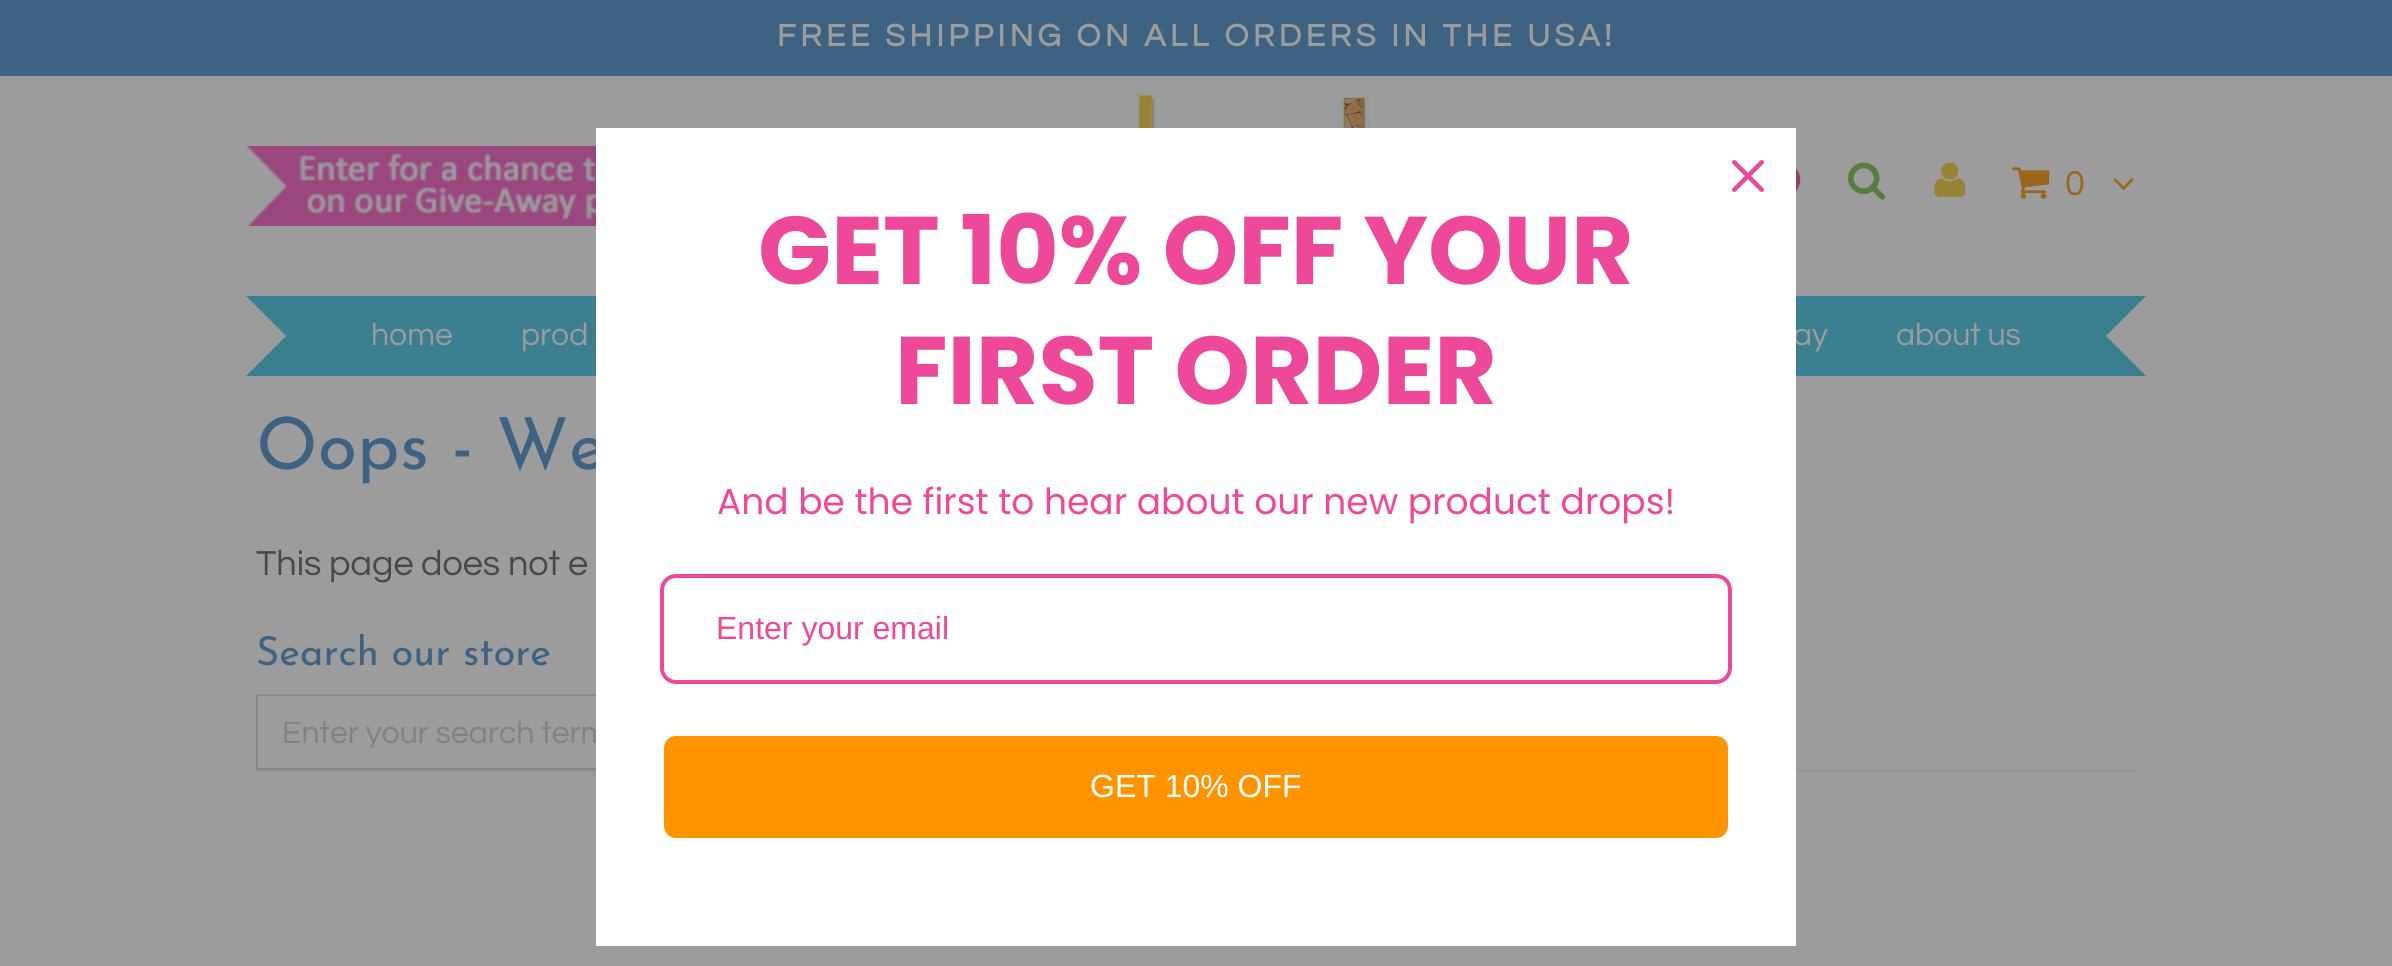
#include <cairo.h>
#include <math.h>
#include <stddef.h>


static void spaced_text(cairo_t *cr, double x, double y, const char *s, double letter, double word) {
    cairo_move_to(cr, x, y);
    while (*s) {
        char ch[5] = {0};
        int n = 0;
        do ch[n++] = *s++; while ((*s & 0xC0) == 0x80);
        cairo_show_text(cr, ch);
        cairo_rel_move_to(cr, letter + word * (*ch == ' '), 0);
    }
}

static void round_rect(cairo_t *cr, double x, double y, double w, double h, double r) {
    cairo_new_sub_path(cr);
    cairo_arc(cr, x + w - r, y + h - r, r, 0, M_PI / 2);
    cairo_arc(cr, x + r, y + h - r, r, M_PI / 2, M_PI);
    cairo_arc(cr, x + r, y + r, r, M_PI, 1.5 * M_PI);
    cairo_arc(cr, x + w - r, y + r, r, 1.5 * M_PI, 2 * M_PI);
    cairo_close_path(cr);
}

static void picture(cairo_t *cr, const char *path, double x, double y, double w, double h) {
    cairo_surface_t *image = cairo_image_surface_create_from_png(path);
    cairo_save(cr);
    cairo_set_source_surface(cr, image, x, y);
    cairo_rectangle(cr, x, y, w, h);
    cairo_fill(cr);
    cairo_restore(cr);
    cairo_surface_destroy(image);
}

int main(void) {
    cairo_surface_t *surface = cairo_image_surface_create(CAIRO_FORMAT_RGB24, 2392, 966);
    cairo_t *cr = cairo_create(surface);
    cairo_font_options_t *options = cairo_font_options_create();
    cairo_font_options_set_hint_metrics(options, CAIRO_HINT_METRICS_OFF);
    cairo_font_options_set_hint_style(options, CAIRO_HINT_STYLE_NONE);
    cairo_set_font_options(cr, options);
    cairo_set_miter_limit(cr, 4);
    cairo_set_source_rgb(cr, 0.612, 0.612, 0.612);
    cairo_paint(cr);
    cairo_set_source_rgb(cr, 0.243, 0.384, 0.506);
    cairo_rectangle(cr, 0, 0, 2392, 76);
    cairo_fill(cr);
    cairo_select_font_face(cr, "Questrial", CAIRO_FONT_SLANT_NORMAL, CAIRO_FONT_WEIGHT_BOLD);
    cairo_set_font_size(cr, 32);
    cairo_set_source_rgb(cr, 0.612, 0.612, 0.612);
    spaced_text(cr, 777, 46, "FREE SHIPPING ON ALL ORDERS IN THE USA!", 4.5, 0);
    picture(cr, "img1.png", 926, 92, 540, 36);
    picture(cr, "img2.png", 246, 146, 350, 80);
    picture(cr, "img3.png", 1796, 168, 5, 23);
    picture(cr, "img4.png", 1848, 162, 38, 38);
    picture(cr, "img5.png", 1934, 162, 32, 35);
    picture(cr, "img6.png", 2012, 167, 38, 32);
    cairo_select_font_face(cr, "Questrial", CAIRO_FONT_SLANT_NORMAL, CAIRO_FONT_WEIGHT_NORMAL);
    cairo_set_font_size(cr, 36);
    cairo_set_source_rgb(cr, 0.612, 0.396, 0.11);
    cairo_move_to(cr, 2065, 195);
    cairo_show_text(cr, "0");
    picture(cr, "img7.png", 2113, 178, 21, 12);
    cairo_set_source_rgb(cr, 0.235, 0.498, 0.565);
    cairo_rectangle(cr, 286, 296, 1820, 80);
    cairo_fill(cr);
    cairo_new_path(cr);
    cairo_move_to(cr, 246, 296);
    cairo_line_to(cr, 326, 296);
    cairo_line_to(cr, 286, 336);
    cairo_close_path(cr);
    cairo_fill(cr);
    cairo_new_path(cr);
    cairo_move_to(cr, 326, 376);
    cairo_line_to(cr, 246, 376);
    cairo_line_to(cr, 286, 336);
    cairo_close_path(cr);
    cairo_fill(cr);
    cairo_set_font_size(cr, 32);
    cairo_set_source_rgb(cr, 0.612, 0.612, 0.612);
    cairo_move_to(cr, 371, 345);
    cairo_show_text(cr, "home");
    cairo_move_to(cr, 521, 345);
    cairo_show_text(cr, "prod");
    cairo_move_to(cr, 1793, 345);
    cairo_show_text(cr, "ay");
    cairo_move_to(cr, 1896, 345);
    cairo_show_text(cr, "about us");
    cairo_set_source_rgb(cr, 0.235, 0.498, 0.565);
    cairo_new_path(cr);
    cairo_move_to(cr, 2066, 296);
    cairo_line_to(cr, 2146, 296);
    cairo_line_to(cr, 2106, 336);
    cairo_close_path(cr);
    cairo_fill(cr);
    cairo_new_path(cr);
    cairo_move_to(cr, 2146, 376);
    cairo_line_to(cr, 2066, 376);
    cairo_line_to(cr, 2106, 336);
    cairo_close_path(cr);
    cairo_fill(cr);
    cairo_select_font_face(cr, "Josefin Sans", CAIRO_FONT_SLANT_NORMAL, CAIRO_FONT_WEIGHT_NORMAL);
    cairo_set_font_size(cr, 72);
    cairo_set_source_rgb(cr, 0.243, 0.384, 0.506);
    cairo_move_to(cr, 256, 469);
    cairo_show_text(cr, "Oops - We");
    cairo_select_font_face(cr, "Questrial", CAIRO_FONT_SLANT_NORMAL, CAIRO_FONT_WEIGHT_NORMAL);
    cairo_set_font_size(cr, 36);
    cairo_set_source_rgb(cr, 0.286, 0.286, 0.286);
    cairo_move_to(cr, 256, 575);
    cairo_show_text(cr, "This page does not e");
    cairo_set_source_rgb(cr, 0.58, 0.58, 0.58);
    cairo_rectangle(cr, 256, 770, 1880, 2);
    cairo_fill(cr);
    cairo_select_font_face(cr, "Josefin Sans", CAIRO_FONT_SLANT_NORMAL, CAIRO_FONT_WEIGHT_NORMAL);
    cairo_set_font_size(cr, 40);
    cairo_set_source_rgb(cr, 0.243, 0.384, 0.506);
    cairo_move_to(cr, 256, 665);
    cairo_show_text(cr, "Search our store");
    cairo_rectangle(cr, 257, 695, 598, 74);
    cairo_set_source_rgb(cr, 0.529, 0.529, 0.529);
    cairo_stroke(cr);
    cairo_save(cr);
    cairo_rectangle(cr, 262, 716, 588, 32);
    cairo_clip(cr);
    cairo_select_font_face(cr, "Questrial", CAIRO_FONT_SLANT_NORMAL, CAIRO_FONT_WEIGHT_NORMAL);
    cairo_set_font_size(cr, 32);
    cairo_set_source_rgb(cr, 0.51, 0.51, 0.51);
    cairo_move_to(cr, 282, 743);
    cairo_show_text(cr, "Enter your search term");
    cairo_restore(cr);
    cairo_set_source_rgb(cr, 1, 1, 1);
    cairo_rectangle(cr, 596, 128, 1200, 818);
    cairo_fill(cr);
    picture(cr, "img8.png", 1732, 160, 32, 32);
    cairo_select_font_face(cr, "Poppins", CAIRO_FONT_SLANT_NORMAL, CAIRO_FONT_WEIGHT_BOLD);
    cairo_set_font_size(cr, 96);
    cairo_set_source_rgb(cr, 0.929, 0.286, 0.596);
    cairo_move_to(cr, 758, 284);
    cairo_show_text(cr, "GET 10% OFF YOUR");
    cairo_move_to(cr, 895, 404);
    cairo_show_text(cr, "FIRST ORDER");
    cairo_select_font_face(cr, "Poppins", CAIRO_FONT_SLANT_NORMAL, CAIRO_FONT_WEIGHT_NORMAL);
    cairo_set_font_size(cr, 36);
    cairo_move_to(cr, 717, 514);
    cairo_show_text(cr, "And be the first to hear about our new product drops!");
    round_rect(cr, 662, 576, 1068, 106, 14);
    cairo_set_line_width(cr, 4);
    cairo_stroke(cr);
    cairo_select_font_face(cr, "Arimo", CAIRO_FONT_SLANT_NORMAL, CAIRO_FONT_WEIGHT_NORMAL);
    cairo_set_font_size(cr, 32);
    cairo_move_to(cr, 716, 639);
    cairo_show_text(cr, "Enter your email");
    cairo_set_source_rgb(cr, 1, 0.58, 0);
    round_rect(cr, 662, 734, 1068, 106, 14);
    cairo_fill_preserve(cr);
    cairo_set_source_rgb(cr, 1, 1, 1);
    cairo_stroke(cr);
    cairo_move_to(cr, 1090, 797);
    cairo_show_text(cr, "GET 10% OFF");
    cairo_surface_write_to_png(surface, "page.png");
    cairo_font_options_destroy(options);
    cairo_destroy(cr);
    cairo_surface_destroy(surface);
    return 0;
}
